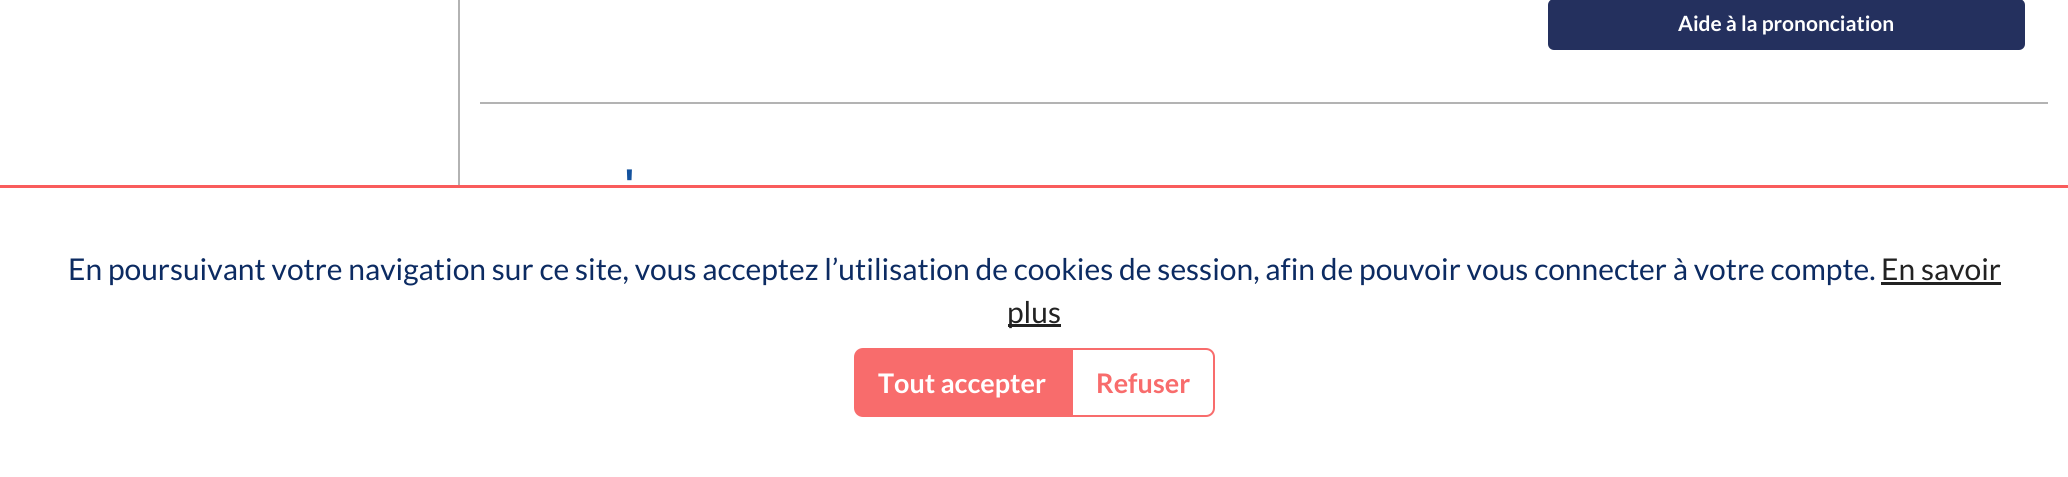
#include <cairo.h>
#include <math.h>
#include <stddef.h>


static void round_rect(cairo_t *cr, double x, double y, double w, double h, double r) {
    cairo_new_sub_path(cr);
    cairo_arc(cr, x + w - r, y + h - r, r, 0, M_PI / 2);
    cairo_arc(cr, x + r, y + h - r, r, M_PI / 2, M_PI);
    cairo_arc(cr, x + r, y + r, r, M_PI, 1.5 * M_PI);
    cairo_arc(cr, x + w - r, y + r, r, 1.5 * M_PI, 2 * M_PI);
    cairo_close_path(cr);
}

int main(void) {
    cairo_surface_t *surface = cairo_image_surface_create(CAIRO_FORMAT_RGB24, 2068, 477);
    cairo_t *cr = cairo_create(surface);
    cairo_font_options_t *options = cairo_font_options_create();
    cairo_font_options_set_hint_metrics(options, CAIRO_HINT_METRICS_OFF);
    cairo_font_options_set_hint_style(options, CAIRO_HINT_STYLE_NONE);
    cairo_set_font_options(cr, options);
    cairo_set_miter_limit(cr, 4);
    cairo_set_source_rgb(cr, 1, 1, 1);
    cairo_paint(cr);
    cairo_set_source_rgb(cr, 0.702, 0.702, 0.702);
    cairo_rectangle(cr, 458, 0, 2, 185);
    cairo_fill(cr);
    cairo_set_source_rgb(cr, 0.141, 0.188, 0.369);
    round_rect(cr, 1549, 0, 475, 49, 5);
    cairo_fill_preserve(cr);
    cairo_stroke(cr);
    cairo_select_font_face(cr, "Lato", CAIRO_FONT_SLANT_NORMAL, CAIRO_FONT_WEIGHT_BOLD);
    cairo_set_font_size(cr, 21);
    cairo_set_source_rgb(cr, 1, 1, 1);
    cairo_move_to(cr, 1678, 31);
    cairo_show_text(cr, "Aide à la prononciation");
    cairo_set_source_rgb(cr, 0.702, 0.702, 0.702);
    cairo_rectangle(cr, 480, 102, 1568, 2);
    cairo_fill(cr);
    cairo_select_font_face(cr, "Montserrat", CAIRO_FONT_SLANT_NORMAL, CAIRO_FONT_WEIGHT_BOLD);
    cairo_set_font_size(cr, 38);
    cairo_set_source_rgb(cr, 0.078, 0.322, 0.62);
    cairo_move_to(cr, 625, 196);
    cairo_show_text(cr, "'");
    cairo_set_source_rgb(cr, 0.976, 0.361, 0.361);
    cairo_rectangle(cr, 0, 185, 2068, 3);
    cairo_fill(cr);
    cairo_select_font_face(cr, "Lato", CAIRO_FONT_SLANT_NORMAL, CAIRO_FONT_WEIGHT_NORMAL);
    cairo_set_font_size(cr, 30);
    cairo_set_source_rgb(cr, 0.047, 0.169, 0.384);
    cairo_move_to(cr, 68, 280);
    cairo_show_text(cr, "En poursuivant votre navigation sur ce site, vous acceptez l’utilisation de cookies de session, afin de pouvoir vous connecter à votre compte.");
    cairo_set_source_rgb(cr, 0.133, 0.133, 0.133);
    cairo_move_to(cr, 1881, 280);
    cairo_show_text(cr, "En savoir");
    cairo_rectangle(cr, 1881, 282, 120, 3);
    cairo_fill(cr);
    cairo_rectangle(cr, 1008, 324, 53, 3);
    cairo_fill(cr);
    cairo_move_to(cr, 1007, 323);
    cairo_show_text(cr, "plus");
    cairo_set_source_rgb(cr, 0.969, 0.424, 0.424);
    cairo_new_path(cr);
    cairo_move_to(cr, 863, 349);
    cairo_line_to(cr, 1072, 349);
    cairo_line_to(cr, 1072, 416);
    cairo_line_to(cr, 863, 416);
    cairo_curve_to(cr, 858.5, 416, 855, 412.5, 855, 408);
    cairo_line_to(cr, 855, 357);
    cairo_curve_to(cr, 855, 352.5, 858.5, 349, 863, 349);
    cairo_close_path(cr);
    cairo_fill_preserve(cr);
    cairo_stroke(cr);
    cairo_select_font_face(cr, "Lato", CAIRO_FONT_SLANT_NORMAL, CAIRO_FONT_WEIGHT_BOLD);
    cairo_set_font_size(cr, 27);
    cairo_set_source_rgb(cr, 1, 1, 1);
    cairo_move_to(cr, 878, 393);
    cairo_show_text(cr, "Tout accepter");
    cairo_new_path(cr);
    cairo_move_to(cr, 1072, 349);
    cairo_line_to(cr, 1206, 349);
    cairo_curve_to(cr, 1210.5, 349, 1214, 352.5, 1214, 357);
    cairo_line_to(cr, 1214, 408);
    cairo_curve_to(cr, 1214, 412.5, 1210.5, 416, 1206, 416);
    cairo_line_to(cr, 1072, 416);
    cairo_close_path(cr);
    cairo_set_source_rgb(cr, 0.969, 0.424, 0.424);
    cairo_stroke(cr);
    cairo_move_to(cr, 1096, 393);
    cairo_show_text(cr, "Refuser");
    cairo_surface_write_to_png(surface, "page.png");
    cairo_font_options_destroy(options);
    cairo_destroy(cr);
    cairo_surface_destroy(surface);
    return 0;
}
